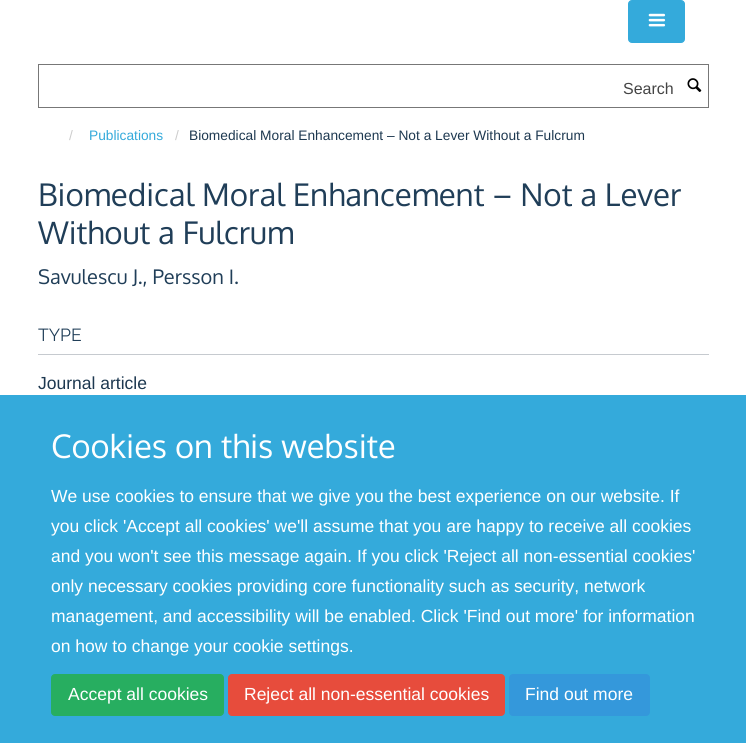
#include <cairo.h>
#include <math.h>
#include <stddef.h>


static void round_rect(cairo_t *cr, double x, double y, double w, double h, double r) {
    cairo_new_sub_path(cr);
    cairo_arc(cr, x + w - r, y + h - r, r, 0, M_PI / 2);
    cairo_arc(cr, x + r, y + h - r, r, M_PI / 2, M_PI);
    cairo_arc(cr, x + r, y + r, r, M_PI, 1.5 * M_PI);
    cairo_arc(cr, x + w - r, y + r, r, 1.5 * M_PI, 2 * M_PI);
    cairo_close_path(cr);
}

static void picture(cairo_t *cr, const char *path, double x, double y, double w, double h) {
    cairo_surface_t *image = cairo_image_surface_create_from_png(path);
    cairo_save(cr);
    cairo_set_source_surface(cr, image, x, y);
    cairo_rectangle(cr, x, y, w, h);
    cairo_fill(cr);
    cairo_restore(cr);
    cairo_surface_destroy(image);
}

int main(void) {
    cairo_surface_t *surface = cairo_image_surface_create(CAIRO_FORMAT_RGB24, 746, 743);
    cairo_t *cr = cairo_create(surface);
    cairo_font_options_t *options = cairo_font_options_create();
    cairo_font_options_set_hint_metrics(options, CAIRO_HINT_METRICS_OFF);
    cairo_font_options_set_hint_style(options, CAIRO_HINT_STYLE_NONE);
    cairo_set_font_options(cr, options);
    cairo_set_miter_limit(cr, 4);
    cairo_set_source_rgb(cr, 1, 1, 1);
    cairo_paint(cr);
    cairo_set_source_rgb(cr, 0.204, 0.667, 0.859);
    round_rect(cr, 628.5, 0.5, 56, 42, 3.5);
    cairo_fill_preserve(cr);
    cairo_set_line_width(cr, 1);
    cairo_stroke(cr);
    picture(cr, "img1.png", 648, 13, 18, 14);
    cairo_rectangle(cr, 38.5, 64.5, 670, 43);
    cairo_set_source_rgb(cr, 0.467, 0.467, 0.467);
    cairo_stroke(cr);
    cairo_select_font_face(cr, "Liberation Sans", CAIRO_FONT_SLANT_NORMAL, CAIRO_FONT_WEIGHT_NORMAL);
    cairo_set_font_size(cr, 16);
    cairo_set_source_rgb(cr, 0.267, 0.267, 0.267);
    cairo_move_to(cr, 623, 94);
    cairo_show_text(cr, "Search");
    picture(cr, "img2.png", 687, 78, 15, 14);
    cairo_set_font_size(cr, 13.75);
    cairo_set_source_rgb(cr, 0.8, 0.8, 0.8);
    cairo_move_to(cr, 69, 140);
    cairo_show_text(cr, "/");
    cairo_set_source_rgb(cr, 0.204, 0.667, 0.859);
    cairo_move_to(cr, 89, 140);
    cairo_show_text(cr, "Publications");
    cairo_set_source_rgb(cr, 0.8, 0.8, 0.8);
    cairo_move_to(cr, 175, 140);
    cairo_show_text(cr, "/");
    cairo_set_source_rgb(cr, 0.114, 0.22, 0.314);
    cairo_move_to(cr, 189, 140);
    cairo_show_text(cr, "Biomedical Moral Enhancement – Not a Lever Without a Fulcrum");
    cairo_select_font_face(cr, "Oxygen", CAIRO_FONT_SLANT_NORMAL, CAIRO_FONT_WEIGHT_NORMAL);
    cairo_set_font_size(cr, 31.25);
    cairo_set_source_rgb(cr, 0.125, 0.243, 0.345);
    cairo_move_to(cr, 38, 206);
    cairo_show_text(cr, "Biomedical Moral Enhancement – Not a Lever");
    cairo_move_to(cr, 38, 244);
    cairo_show_text(cr, "Without a Fulcrum");
    cairo_set_font_size(cr, 20);
    cairo_move_to(cr, 38, 284);
    cairo_show_text(cr, "Savulescu J., Persson I.");
    cairo_set_source_rgb(cr, 0.776, 0.792, 0.812);
    cairo_rectangle(cr, 38, 354, 671, 1);
    cairo_fill(cr);
    cairo_select_font_face(cr, "Raleway Thin", CAIRO_FONT_SLANT_NORMAL, CAIRO_FONT_WEIGHT_NORMAL);
    cairo_set_font_size(cr, 17.5);
    cairo_set_source_rgb(cr, 0.125, 0.243, 0.345);
    cairo_move_to(cr, 38, 341);
    cairo_show_text(cr, "TYPE");
    cairo_select_font_face(cr, "Liberation Sans", CAIRO_FONT_SLANT_NORMAL, CAIRO_FONT_WEIGHT_NORMAL);
    cairo_set_source_rgb(cr, 0.114, 0.22, 0.314);
    cairo_move_to(cr, 38, 389);
    cairo_show_text(cr, "Journal article");
    cairo_set_source_rgb(cr, 0.204, 0.667, 0.859);
    cairo_rectangle(cr, 0, 395, 746, 348);
    cairo_fill(cr);
    cairo_select_font_face(cr, "Oxygen", CAIRO_FONT_SLANT_NORMAL, CAIRO_FONT_WEIGHT_NORMAL);
    cairo_set_font_size(cr, 32.5);
    cairo_set_source_rgb(cr, 1, 1, 1);
    cairo_move_to(cr, 51, 458);
    cairo_show_text(cr, "Cookies on this website");
    cairo_select_font_face(cr, "Liberation Sans", CAIRO_FONT_SLANT_NORMAL, CAIRO_FONT_WEIGHT_NORMAL);
    cairo_set_font_size(cr, 17.5);
    cairo_move_to(cr, 51, 502);
    cairo_show_text(cr, "We use cookies to ensure that we give you the best experience on our website. If");
    cairo_move_to(cr, 51, 532);
    cairo_show_text(cr, "you click 'Accept all cookies' we'll assume that you are happy to receive all cookies");
    cairo_move_to(cr, 51, 562);
    cairo_show_text(cr, "and you won't see this message again. If you click 'Reject all non-essential cookies'");
    cairo_move_to(cr, 51, 592);
    cairo_show_text(cr, "only necessary cookies providing core functionality such as security, network");
    cairo_move_to(cr, 51, 622);
    cairo_show_text(cr, "management, and accessibility will be enabled. Click 'Find out more' for information");
    cairo_move_to(cr, 51, 652);
    cairo_show_text(cr, "on how to change your cookie settings.");
    cairo_set_source_rgb(cr, 0.153, 0.682, 0.376);
    round_rect(cr, 51.5, 674.5, 172, 41, 3.5);
    cairo_fill_preserve(cr);
    cairo_stroke(cr);
    cairo_set_source_rgb(cr, 1, 1, 1);
    cairo_move_to(cr, 68, 700);
    cairo_show_text(cr, "Accept all cookies");
    cairo_set_source_rgb(cr, 0.906, 0.298, 0.235);
    round_rect(cr, 228.5, 674.5, 276, 41, 3.5);
    cairo_fill_preserve(cr);
    cairo_stroke(cr);
    cairo_set_source_rgb(cr, 1, 1, 1);
    cairo_move_to(cr, 244, 700);
    cairo_show_text(cr, "Reject all non-essential cookies");
    cairo_set_source_rgb(cr, 0.204, 0.596, 0.859);
    round_rect(cr, 509.5, 674.5, 140, 41, 3.5);
    cairo_fill_preserve(cr);
    cairo_stroke(cr);
    cairo_set_source_rgb(cr, 1, 1, 1);
    cairo_move_to(cr, 525, 700);
    cairo_show_text(cr, "Find out more");
    cairo_surface_write_to_png(surface, "page.png");
    cairo_font_options_destroy(options);
    cairo_destroy(cr);
    cairo_surface_destroy(surface);
    return 0;
}
